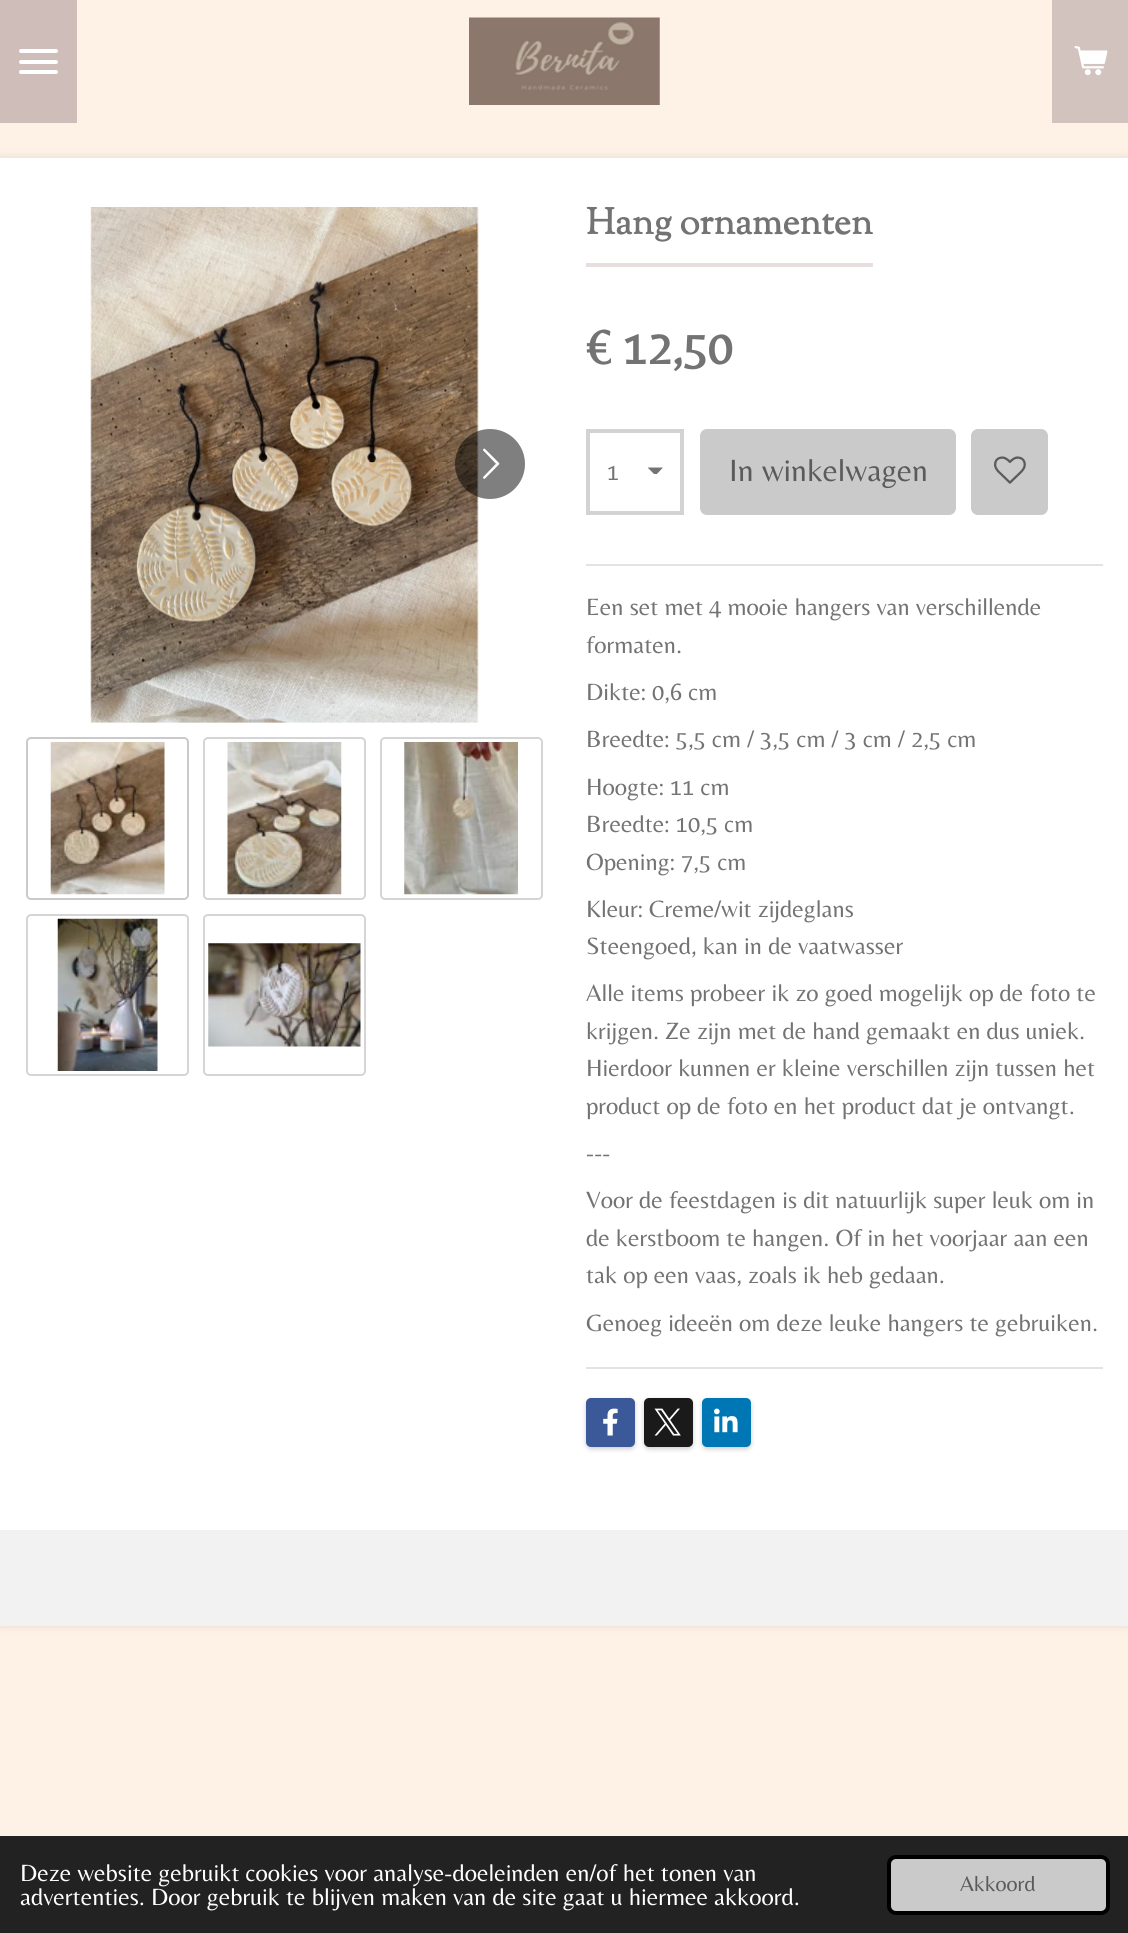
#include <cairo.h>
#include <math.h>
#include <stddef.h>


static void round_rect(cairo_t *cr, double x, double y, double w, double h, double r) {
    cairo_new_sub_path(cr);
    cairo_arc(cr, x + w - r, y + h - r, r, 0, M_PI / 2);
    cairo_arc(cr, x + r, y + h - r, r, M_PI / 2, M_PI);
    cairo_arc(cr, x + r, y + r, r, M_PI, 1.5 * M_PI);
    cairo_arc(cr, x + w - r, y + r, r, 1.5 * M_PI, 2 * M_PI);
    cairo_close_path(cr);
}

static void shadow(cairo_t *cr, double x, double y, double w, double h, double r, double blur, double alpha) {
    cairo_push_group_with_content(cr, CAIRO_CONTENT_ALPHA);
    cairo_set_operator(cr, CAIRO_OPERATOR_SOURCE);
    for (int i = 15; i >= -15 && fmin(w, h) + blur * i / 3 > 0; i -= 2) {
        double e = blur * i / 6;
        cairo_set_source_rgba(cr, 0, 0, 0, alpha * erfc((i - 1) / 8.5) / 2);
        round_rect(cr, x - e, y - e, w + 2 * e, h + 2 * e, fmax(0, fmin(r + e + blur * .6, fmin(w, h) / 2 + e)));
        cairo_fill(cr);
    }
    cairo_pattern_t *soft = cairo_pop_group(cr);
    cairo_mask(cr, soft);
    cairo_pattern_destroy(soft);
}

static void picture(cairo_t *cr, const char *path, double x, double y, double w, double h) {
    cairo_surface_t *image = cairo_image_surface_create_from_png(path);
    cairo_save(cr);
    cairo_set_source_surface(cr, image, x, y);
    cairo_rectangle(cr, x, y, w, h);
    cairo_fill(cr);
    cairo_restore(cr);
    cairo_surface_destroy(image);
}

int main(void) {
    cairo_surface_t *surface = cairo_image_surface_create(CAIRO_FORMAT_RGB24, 1128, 1933);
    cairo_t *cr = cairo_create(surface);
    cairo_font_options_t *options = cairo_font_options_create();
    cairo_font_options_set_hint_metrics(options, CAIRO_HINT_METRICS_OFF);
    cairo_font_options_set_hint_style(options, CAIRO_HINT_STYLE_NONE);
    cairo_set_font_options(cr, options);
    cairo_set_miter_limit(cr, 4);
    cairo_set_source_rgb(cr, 0.996, 0.945, 0.902);
    cairo_paint(cr);
    cairo_set_source_rgb(cr, 0.808, 0.741, 0.725);
    cairo_rectangle(cr, 0, 0, 77, 123);
    cairo_fill(cr);
    cairo_set_source_rgb(cr, 1, 1, 1);
    round_rect(cr, 19, 60, 39, 4, 2);
    cairo_fill(cr);
    round_rect(cr, 19, 49, 39, 4, 2);
    cairo_fill(cr);
    round_rect(cr, 19, 70, 39, 4, 2);
    cairo_fill(cr);
    picture(cr, "img1.png", 469, 17, 191, 88);
    cairo_set_source_rgb(cr, 0.824, 0.765, 0.749);
    cairo_rectangle(cr, 1052, 0, 76, 123);
    cairo_fill(cr);
    picture(cr, "img2.png", 1074, 46, 34, 30);
    cairo_set_source_rgb(cr, 0, 0, 0);
    shadow(cr, 0, 158, 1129, 1468, 0, 4.5, 0.1);
    cairo_set_source_rgb(cr, 1, 1, 1);
    cairo_rectangle(cr, 0, 158, 1128, 1372);
    cairo_fill(cr);
    picture(cr, "img3.png", 90, 207, 389, 516);
    cairo_set_source_rgba(cr, 0, 0, 0, 0.5);
    cairo_arc(cr, 490, 464, 35, 0, 2 * M_PI);
    cairo_fill(cr);
    picture(cr, "img4.png", 483, 448, 17, 31);
    round_rect(cr, 27, 738, 161, 161, 4);
    cairo_set_source_rgb(cr, 0.792, 0.792, 0.792);
    cairo_stroke(cr);
    picture(cr, "img5.png", 50, 742, 115, 153);
    round_rect(cr, 204, 738, 161, 161, 4);
    cairo_set_source_rgb(cr, 0.835, 0.835, 0.835);
    cairo_stroke(cr);
    picture(cr, "img6.png", 227, 742, 115, 153);
    round_rect(cr, 381, 738, 161, 161, 4);
    cairo_stroke(cr);
    picture(cr, "img7.png", 404, 742, 114, 153);
    round_rect(cr, 27, 915, 161, 160, 4);
    cairo_stroke(cr);
    picture(cr, "img8.png", 57, 918, 101, 153);
    round_rect(cr, 204, 915, 161, 160, 4);
    cairo_stroke(cr);
    picture(cr, "img9.png", 208, 943, 153, 104);
    cairo_set_source_rgb(cr, 0.906, 0.875, 0.867);
    cairo_rectangle(cr, 586, 263, 287, 4);
    cairo_fill(cr);
    cairo_select_font_face(cr, "Sorts Mill Goudy", CAIRO_FONT_SLANT_NORMAL, CAIRO_FONT_WEIGHT_BOLD);
    cairo_set_font_size(cr, 36.75);
    cairo_set_source_rgb(cr, 0.451, 0.451, 0.451);
    cairo_move_to(cr, 586, 234);
    cairo_show_text(cr, "Hang ornamenten");
    cairo_select_font_face(cr, "Belleza", CAIRO_FONT_SLANT_NORMAL, CAIRO_FONT_WEIGHT_BOLD);
    cairo_set_font_size(cr, 49);
    cairo_move_to(cr, 586, 364);
    cairo_show_text(cr, "€ 12,50");
    cairo_save(cr);
    cairo_rectangle(cr, 648, 467, 15, 7);
    cairo_clip(cr);
    cairo_new_path(cr);
    cairo_move_to(cr, 655.5, 475.5);
    cairo_line_to(cr, 647.5, 467.5);
    cairo_line_to(cr, 663, 467.5);
    cairo_close_path(cr);
    cairo_fill(cr);
    cairo_restore(cr);
    cairo_rectangle(cr, 588, 431, 94, 82);
    cairo_set_source_rgb(cr, 0.827, 0.827, 0.827);
    cairo_set_line_width(cr, 4);
    cairo_stroke(cr);
    cairo_select_font_face(cr, "Belleza", CAIRO_FONT_SLANT_NORMAL, CAIRO_FONT_WEIGHT_NORMAL);
    cairo_set_font_size(cr, 24.5);
    cairo_set_source_rgb(cr, 0.451, 0.451, 0.451);
    cairo_move_to(cr, 607, 480);
    cairo_show_text(cr, "1");
    cairo_set_source_rgb(cr, 0.792, 0.792, 0.792);
    round_rect(cr, 700, 429, 256, 86, 7);
    cairo_fill(cr);
    cairo_set_font_size(cr, 32);
    cairo_set_source_rgb(cr, 0.357, 0.357, 0.357);
    cairo_move_to(cr, 729, 481);
    cairo_show_text(cr, "In winkelwagen");
    cairo_set_source_rgb(cr, 0.792, 0.792, 0.792);
    round_rect(cr, 971, 429, 77, 86, 7);
    cairo_fill(cr);
    picture(cr, "img10.png", 994, 456, 32, 28);
    cairo_set_source_rgb(cr, 0.89, 0.89, 0.89);
    cairo_rectangle(cr, 586, 564, 517, 2);
    cairo_fill(cr);
    cairo_set_font_size(cr, 24.5);
    cairo_set_source_rgb(cr, 0.451, 0.451, 0.451);
    cairo_move_to(cr, 586, 615);
    cairo_show_text(cr, "Een set met 4 mooie hangers van verschillende");
    cairo_move_to(cr, 586, 653);
    cairo_show_text(cr, "formaten.");
    cairo_move_to(cr, 586, 700);
    cairo_show_text(cr, "Dikte: 0,6 cm");
    cairo_move_to(cr, 586, 747);
    cairo_show_text(cr, "Breedte: 5,5 cm / 3,5 cm / 3 cm / 2,5 cm");
    cairo_move_to(cr, 586, 795);
    cairo_show_text(cr, "Hoogte: 11 cm");
    cairo_move_to(cr, 586, 832);
    cairo_show_text(cr, "Breedte: 10,5 cm");
    cairo_move_to(cr, 586, 870);
    cairo_show_text(cr, "Opening: 7,5 cm");
    cairo_move_to(cr, 586, 917);
    cairo_show_text(cr, "Kleur: Creme/wit zijdeglans");
    cairo_move_to(cr, 586, 954);
    cairo_show_text(cr, "Steengoed, kan in de vaatwasser");
    cairo_move_to(cr, 586, 1001);
    cairo_show_text(cr, "Alle items probeer ik zo goed mogelijk op de foto te");
    cairo_move_to(cr, 586, 1039);
    cairo_show_text(cr, "krijgen. Ze zijn met de hand gemaakt en dus uniek.");
    cairo_move_to(cr, 586, 1076);
    cairo_show_text(cr, "Hierdoor kunnen er kleine verschillen zijn tussen het");
    cairo_move_to(cr, 586, 1114);
    cairo_show_text(cr, "product op de foto en het product dat je ontvangt.");
    cairo_move_to(cr, 586, 1161);
    cairo_show_text(cr, "---");
    cairo_move_to(cr, 586, 1208);
    cairo_show_text(cr, "Voor de feestdagen is dit natuurlijk super leuk om in");
    cairo_move_to(cr, 586, 1246);
    cairo_show_text(cr, "de kerstboom te hangen. Of in het voorjaar aan een");
    cairo_move_to(cr, 586, 1283);
    cairo_show_text(cr, "tak op een vaas, zoals ik heb gedaan.");
    cairo_move_to(cr, 586, 1331);
    cairo_show_text(cr, "Genoeg ideeën om deze leuke hangers te gebruiken.");
    cairo_set_source_rgb(cr, 0.89, 0.89, 0.89);
    cairo_rectangle(cr, 586, 1367, 517, 2);
    cairo_fill(cr);
    cairo_set_source_rgb(cr, 0, 0, 0);
    shadow(cr, 586, 1400, 49, 49, 5, 2.5, 0.2);
    cairo_set_source_rgb(cr, 0.231, 0.349, 0.596);
    round_rect(cr, 586, 1398, 49, 49, 5);
    cairo_fill(cr);
    picture(cr, "img11.png", 603, 1408, 15, 28);
    cairo_set_source_rgb(cr, 0, 0, 0);
    shadow(cr, 644, 1400, 49, 49, 5, 2.5, 0.2);
    cairo_set_source_rgb(cr, 0.102, 0.102, 0.102);
    round_rect(cr, 644, 1398, 49, 49, 5);
    cairo_fill(cr);
    picture(cr, "img12.png", 654, 1408, 27, 28);
    cairo_set_source_rgb(cr, 0, 0, 0);
    shadow(cr, 702, 1400, 49, 49, 5, 2.5, 0.2);
    cairo_set_source_rgb(cr, 0, 0.467, 0.71);
    round_rect(cr, 702, 1398, 49, 49, 5);
    cairo_fill(cr);
    picture(cr, "img13.png", 714, 1408, 24, 25);
    cairo_set_source_rgb(cr, 0.949, 0.949, 0.949);
    cairo_rectangle(cr, 0, 1530, 1128, 96);
    cairo_fill(cr);
    cairo_set_source_rgb(cr, 0.133, 0.133, 0.133);
    cairo_rectangle(cr, 0, 1836, 1128, 97);
    cairo_fill(cr);
    cairo_set_source_rgb(cr, 1, 1, 1);
    cairo_move_to(cr, 20, 1881);
    cairo_show_text(cr, "Deze website gebruikt cookies voor analyse-doeleinden en/of het tonen van");
    cairo_move_to(cr, 20, 1905);
    cairo_show_text(cr, "advertenties. Door gebruik te blijven maken van de site gaat u hiermee akkoord.");
    cairo_set_source_rgb(cr, 0.792, 0.792, 0.792);
    round_rect(cr, 889, 1857, 219, 56, 7);
    cairo_fill_preserve(cr);
    cairo_set_source_rgb(cr, 0, 0, 0);
    cairo_stroke(cr);
    cairo_set_font_size(cr, 22);
    cairo_set_source_rgb(cr, 0.357, 0.357, 0.357);
    cairo_move_to(cr, 960, 1891);
    cairo_show_text(cr, "Akkoord");
    cairo_surface_write_to_png(surface, "page.png");
    cairo_font_options_destroy(options);
    cairo_destroy(cr);
    cairo_surface_destroy(surface);
    return 0;
}
